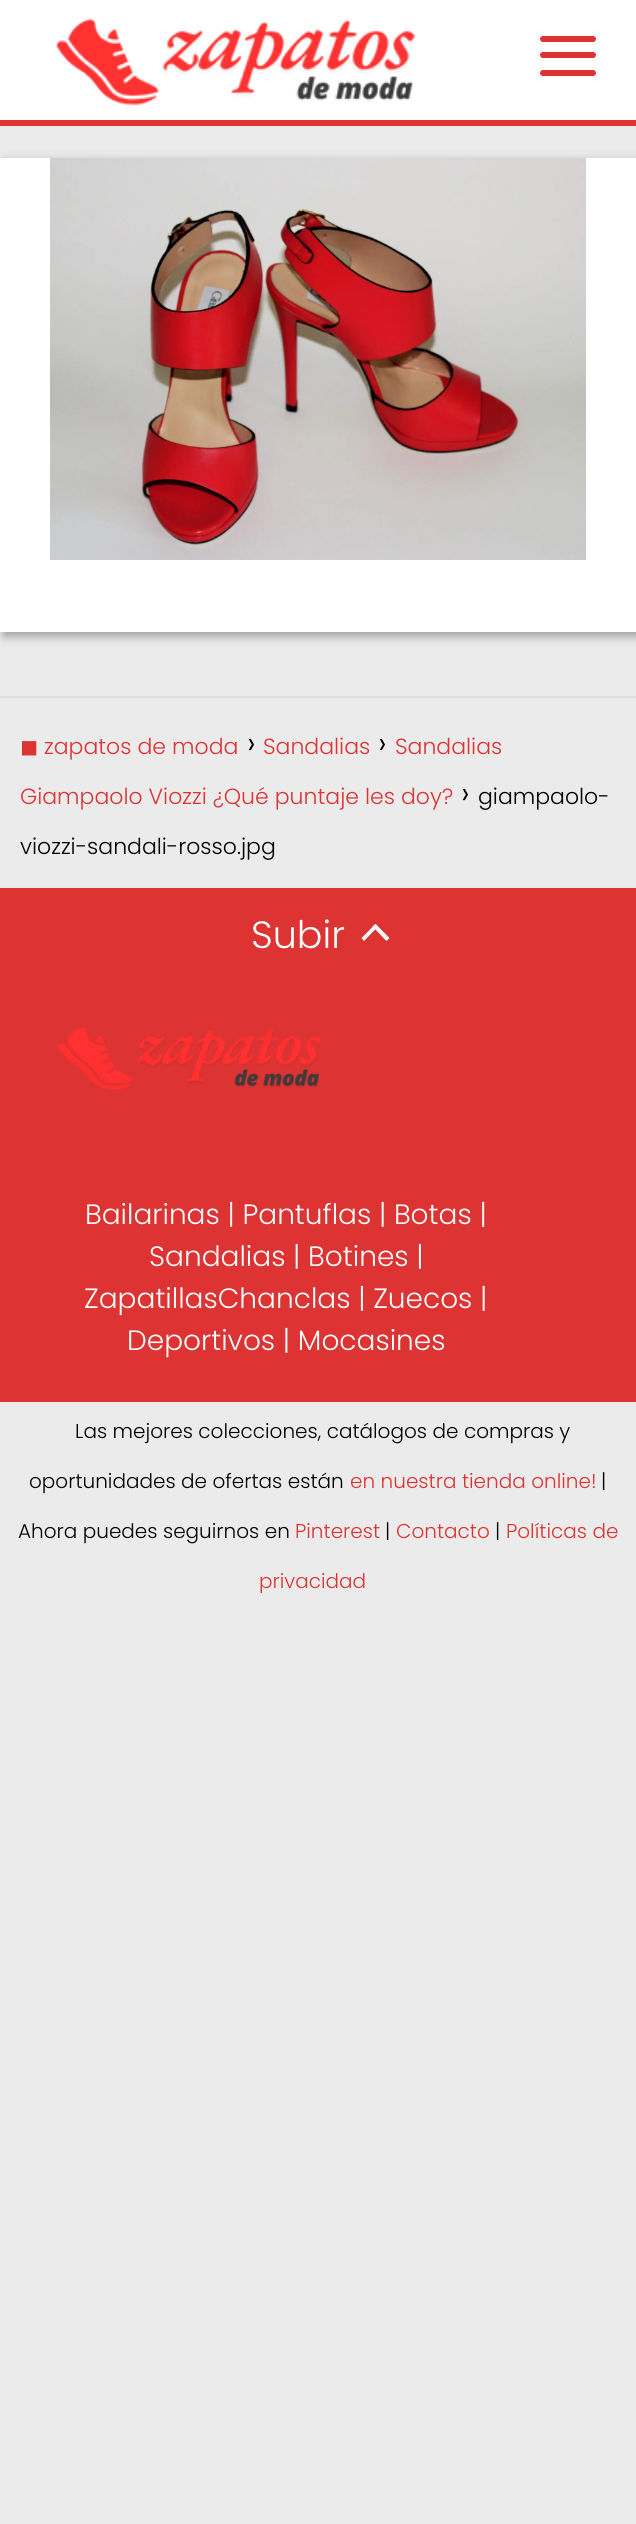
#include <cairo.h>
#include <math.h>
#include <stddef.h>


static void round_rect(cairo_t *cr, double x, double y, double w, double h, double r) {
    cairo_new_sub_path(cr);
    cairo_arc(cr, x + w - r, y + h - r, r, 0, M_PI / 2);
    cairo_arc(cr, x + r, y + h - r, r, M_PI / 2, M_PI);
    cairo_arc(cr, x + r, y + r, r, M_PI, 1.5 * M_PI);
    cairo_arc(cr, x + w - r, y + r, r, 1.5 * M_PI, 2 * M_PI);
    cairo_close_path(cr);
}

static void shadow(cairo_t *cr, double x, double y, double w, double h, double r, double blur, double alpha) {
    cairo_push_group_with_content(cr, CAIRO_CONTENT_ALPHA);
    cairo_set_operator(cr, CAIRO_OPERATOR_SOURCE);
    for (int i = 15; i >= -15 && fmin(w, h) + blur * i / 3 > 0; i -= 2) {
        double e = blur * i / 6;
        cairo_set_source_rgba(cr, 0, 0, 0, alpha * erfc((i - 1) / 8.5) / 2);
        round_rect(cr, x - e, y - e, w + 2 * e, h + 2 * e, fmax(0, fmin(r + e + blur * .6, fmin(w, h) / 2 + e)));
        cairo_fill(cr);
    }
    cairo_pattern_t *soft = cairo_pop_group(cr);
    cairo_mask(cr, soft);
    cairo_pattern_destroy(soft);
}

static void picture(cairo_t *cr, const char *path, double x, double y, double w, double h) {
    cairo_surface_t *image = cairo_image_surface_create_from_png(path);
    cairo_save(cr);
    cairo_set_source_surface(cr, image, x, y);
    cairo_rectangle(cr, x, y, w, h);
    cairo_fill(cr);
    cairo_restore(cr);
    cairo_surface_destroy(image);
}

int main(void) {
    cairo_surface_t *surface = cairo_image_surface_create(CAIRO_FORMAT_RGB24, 636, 2524);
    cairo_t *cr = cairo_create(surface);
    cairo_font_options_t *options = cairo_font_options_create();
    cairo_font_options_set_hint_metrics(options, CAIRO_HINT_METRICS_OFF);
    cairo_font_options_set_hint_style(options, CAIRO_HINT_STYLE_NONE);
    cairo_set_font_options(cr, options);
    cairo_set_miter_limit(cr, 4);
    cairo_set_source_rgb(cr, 0.918, 0.918, 0.918);
    cairo_paint(cr);
    cairo_set_source_rgb(cr, 1, 1, 1);
    cairo_rectangle(cr, 0, 0, 636, 120);
    cairo_fill(cr);
    cairo_set_source_rgb(cr, 0.867, 0.2, 0.2);
    cairo_rectangle(cr, 0, 120, 636, 6);
    cairo_fill(cr);
    picture(cr, "img1.png", 56, 18, 360, 88);
    round_rect(cr, 540, 36, 56, 6, 3);
    cairo_fill(cr);
    round_rect(cr, 540, 52, 56, 6, 3);
    cairo_fill(cr);
    round_rect(cr, 540, 70, 56, 6, 3);
    cairo_fill(cr);
    cairo_set_source_rgb(cr, 0.6, 0.6, 0.6);
    shadow(cr, 4, 162, 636, 474, 0, 5, 1);
    cairo_set_source_rgb(cr, 1, 1, 1);
    cairo_rectangle(cr, 0, 158, 636, 474);
    cairo_fill(cr);
    picture(cr, "img2.png", 50, 158, 536, 402);
    cairo_set_source_rgb(cr, 0.867, 0.867, 0.867);
    cairo_rectangle(cr, 0, 696, 636, 2);
    cairo_fill(cr);
    cairo_select_font_face(cr, "DejaVu Sans", CAIRO_FONT_SLANT_NORMAL, CAIRO_FONT_WEIGHT_NORMAL);
    cairo_set_font_size(cr, 22);
    cairo_set_source_rgb(cr, 0.867, 0.2, 0.2);
    cairo_move_to(cr, 20, 754);
    cairo_show_text(cr, "◼");
    cairo_select_font_face(cr, "Poppins Light", CAIRO_FONT_SLANT_NORMAL, CAIRO_FONT_WEIGHT_NORMAL);
    cairo_move_to(cr, 44, 754);
    cairo_show_text(cr, "zapatos de moda");
    cairo_set_font_size(cr, 32);
    cairo_set_source_rgb(cr, 0, 0, 0);
    cairo_move_to(cr, 247, 754);
    cairo_show_text(cr, "›");
    cairo_set_font_size(cr, 22);
    cairo_set_source_rgb(cr, 0.867, 0.2, 0.2);
    cairo_move_to(cr, 263, 754);
    cairo_show_text(cr, "Sandalias");
    cairo_set_font_size(cr, 32);
    cairo_set_source_rgb(cr, 0, 0, 0);
    cairo_move_to(cr, 378, 754);
    cairo_show_text(cr, "›");
    cairo_set_font_size(cr, 22);
    cairo_set_source_rgb(cr, 0.867, 0.2, 0.2);
    cairo_move_to(cr, 395, 754);
    cairo_show_text(cr, "Sandalias");
    cairo_move_to(cr, 20, 804);
    cairo_show_text(cr, "Giampaolo Viozzi ¿Qué puntaje les doy?");
    cairo_set_font_size(cr, 32);
    cairo_set_source_rgb(cr, 0, 0, 0);
    cairo_move_to(cr, 461, 804);
    cairo_show_text(cr, "›");
    cairo_set_font_size(cr, 22);
    cairo_move_to(cr, 478, 804);
    cairo_show_text(cr, "giampaolo-");
    cairo_move_to(cr, 20, 854);
    cairo_show_text(cr, "viozzi-sandali-rosso.jpg");
    cairo_set_source_rgb(cr, 0.867, 0.2, 0.2);
    cairo_rectangle(cr, 0, 888, 636, 514);
    cairo_fill(cr);
    cairo_set_font_size(cr, 38);
    cairo_set_source_rgb(cr, 1, 1, 1);
    cairo_move_to(cr, 251, 948);
    cairo_show_text(cr, "Subir");
    cairo_new_path(cr);
    cairo_move_to(cr, 364, 941);
    cairo_line_to(cr, 361.5, 938);
    cairo_line_to(cr, 375.5, 924);
    cairo_line_to(cr, 378, 926.5);
    cairo_close_path(cr);
    cairo_fill(cr);
    cairo_new_path(cr);
    cairo_move_to(cr, 386.5, 941);
    cairo_line_to(cr, 372.5, 926.5);
    cairo_line_to(cr, 375.5, 924);
    cairo_line_to(cr, 389.5, 938);
    cairo_close_path(cr);
    cairo_fill(cr);
    picture(cr, "img3.png", 58, 1027, 263, 63);
    cairo_set_font_size(cr, 28);
    cairo_move_to(cr, 85, 1224);
    cairo_show_text(cr, "Bailarinas | Pantuflas | Botas |");
    cairo_move_to(cr, 149, 1266);
    cairo_show_text(cr, "Sandalias | Botines |");
    cairo_move_to(cr, 84, 1308);
    cairo_show_text(cr, "ZapatillasChanclas | Zuecos |");
    cairo_move_to(cr, 127, 1350);
    cairo_show_text(cr, "Deportivos | Mocasines");
    cairo_set_font_size(cr, 20);
    cairo_set_source_rgb(cr, 0, 0, 0);
    cairo_move_to(cr, 75, 1438);
    cairo_show_text(cr, "Las mejores colecciones, catálogos de compras y");
    cairo_move_to(cr, 29, 1488);
    cairo_show_text(cr, "oportunidades de ofertas están");
    cairo_set_source_rgb(cr, 0.867, 0.2, 0.2);
    cairo_move_to(cr, 350, 1488);
    cairo_show_text(cr, "en nuestra tienda online!");
    cairo_set_source_rgb(cr, 0, 0, 0);
    cairo_move_to(cr, 601, 1488);
    cairo_show_text(cr, "|");
    cairo_move_to(cr, 18, 1538);
    cairo_show_text(cr, "Ahora puedes seguirnos en");
    cairo_set_source_rgb(cr, 0.867, 0.2, 0.2);
    cairo_move_to(cr, 295, 1538);
    cairo_show_text(cr, "Pinterest");
    cairo_set_source_rgb(cr, 0, 0, 0);
    cairo_move_to(cr, 385, 1538);
    cairo_show_text(cr, "|");
    cairo_set_source_rgb(cr, 0.867, 0.2, 0.2);
    cairo_move_to(cr, 396, 1538);
    cairo_show_text(cr, "Contacto");
    cairo_set_source_rgb(cr, 0, 0, 0);
    cairo_move_to(cr, 495, 1538);
    cairo_show_text(cr, "|");
    cairo_set_source_rgb(cr, 0.867, 0.2, 0.2);
    cairo_move_to(cr, 506, 1538);
    cairo_show_text(cr, "Políticas de");
    cairo_move_to(cr, 259, 1588);
    cairo_show_text(cr, "privacidad");
    cairo_surface_write_to_png(surface, "page.png");
    cairo_font_options_destroy(options);
    cairo_destroy(cr);
    cairo_surface_destroy(surface);
    return 0;
}
